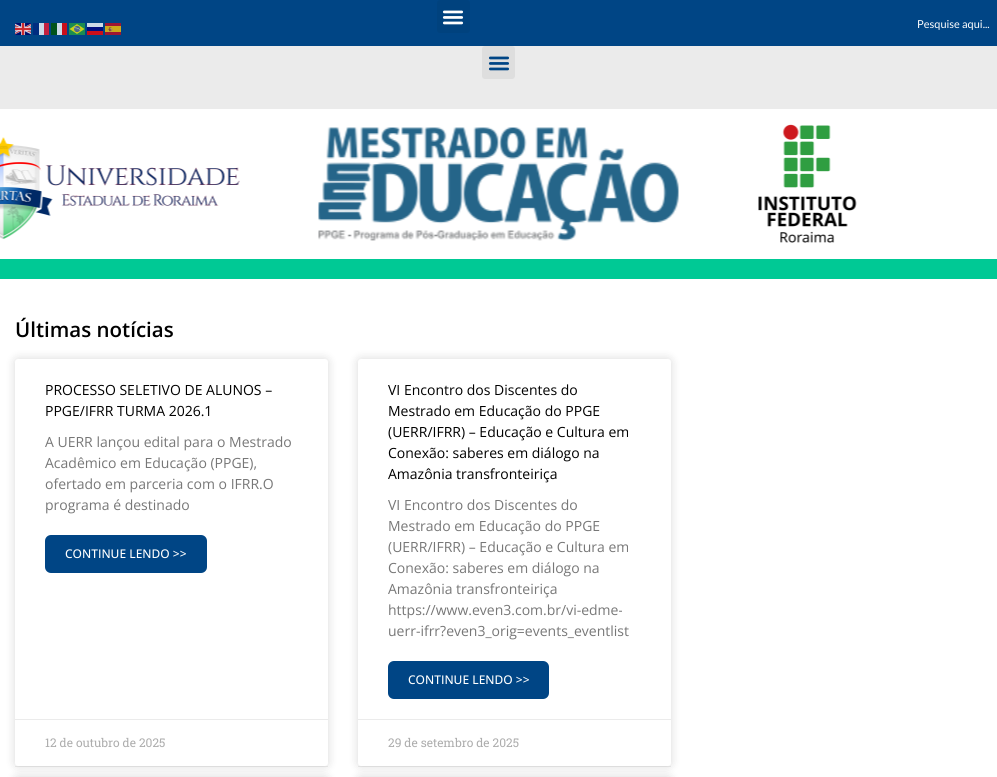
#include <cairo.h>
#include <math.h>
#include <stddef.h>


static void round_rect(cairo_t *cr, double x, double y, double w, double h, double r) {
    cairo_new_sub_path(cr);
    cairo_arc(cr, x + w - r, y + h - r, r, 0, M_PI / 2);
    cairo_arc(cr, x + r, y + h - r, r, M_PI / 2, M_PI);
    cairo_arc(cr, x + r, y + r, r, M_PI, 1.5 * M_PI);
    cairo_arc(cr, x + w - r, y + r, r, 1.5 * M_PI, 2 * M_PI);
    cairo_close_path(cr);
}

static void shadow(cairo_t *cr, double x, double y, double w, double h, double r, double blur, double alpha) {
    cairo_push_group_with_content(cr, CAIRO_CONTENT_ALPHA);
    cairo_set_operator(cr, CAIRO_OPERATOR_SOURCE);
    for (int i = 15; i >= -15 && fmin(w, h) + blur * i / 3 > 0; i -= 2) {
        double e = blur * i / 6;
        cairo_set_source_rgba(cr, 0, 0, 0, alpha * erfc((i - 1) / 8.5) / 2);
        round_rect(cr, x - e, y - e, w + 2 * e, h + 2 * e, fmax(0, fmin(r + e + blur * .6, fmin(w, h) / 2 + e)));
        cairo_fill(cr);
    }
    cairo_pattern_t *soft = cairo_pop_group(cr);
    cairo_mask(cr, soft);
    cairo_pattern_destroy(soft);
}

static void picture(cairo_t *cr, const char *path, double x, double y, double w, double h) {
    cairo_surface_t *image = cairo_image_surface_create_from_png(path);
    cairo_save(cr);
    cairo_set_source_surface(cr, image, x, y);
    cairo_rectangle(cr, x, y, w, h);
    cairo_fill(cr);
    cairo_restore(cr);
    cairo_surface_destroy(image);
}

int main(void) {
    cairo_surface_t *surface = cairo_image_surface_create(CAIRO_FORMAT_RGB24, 997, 777);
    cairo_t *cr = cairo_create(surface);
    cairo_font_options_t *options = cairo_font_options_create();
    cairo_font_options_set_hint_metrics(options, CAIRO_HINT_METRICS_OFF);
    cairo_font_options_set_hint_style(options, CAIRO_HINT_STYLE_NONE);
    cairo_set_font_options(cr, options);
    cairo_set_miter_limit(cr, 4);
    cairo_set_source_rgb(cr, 1, 1, 1);
    cairo_paint(cr);
    cairo_set_source_rgb(cr, 0, 0.271, 0.522);
    cairo_rectangle(cr, 0, 0, 997, 46);
    cairo_fill(cr);
    cairo_set_source_rgb(cr, 0, 0.259, 0.494);
    round_rect(cr, 437, 0, 33, 33, 3);
    cairo_fill(cr);
    picture(cr, "img1.png", 442, 10, 22, 15);
    cairo_select_font_face(cr, "Lato", CAIRO_FONT_SLANT_NORMAL, CAIRO_FONT_WEIGHT_NORMAL);
    cairo_set_font_size(cr, 11);
    cairo_set_source_rgb(cr, 1, 1, 1);
    cairo_move_to(cr, 917, 28);
    cairo_show_text(cr, "Pesquise aqui...");
    cairo_set_source_rgb(cr, 0.918, 0.918, 0.918);
    cairo_rectangle(cr, 0, 46, 997, 63);
    cairo_fill(cr);
    cairo_set_source_rgb(cr, 0.871, 0.871, 0.871);
    round_rect(cr, 482, 46, 33, 33, 3);
    cairo_fill(cr);
    picture(cr, "img2.png", 488, 56, 22, 15);
    picture(cr, "img3.png", 0, 109, 997, 150);
    cairo_set_source_rgb(cr, 0, 0.788, 0.584);
    cairo_rectangle(cr, 0, 259, 997, 20);
    cairo_fill(cr);
    cairo_select_font_face(cr, "Open Sans SemiBold", CAIRO_FONT_SLANT_NORMAL, CAIRO_FONT_WEIGHT_NORMAL);
    cairo_set_font_size(cr, 20.5);
    cairo_set_source_rgb(cr, 0, 0, 0);
    cairo_move_to(cr, 15, 337);
    cairo_show_text(cr, "Últimas notícias");
    cairo_set_source_rgb(cr, 0.933, 0.933, 0.933);
    cairo_rectangle(cr, 15, 766, 313, 1);
    cairo_fill(cr);
    cairo_set_source_rgb(cr, 0, 0, 0);
    shadow(cr, 15, 359, 313, 407, 3, 5, 0.15);
    cairo_set_source_rgb(cr, 1, 1, 1);
    round_rect(cr, 15, 359, 313, 407, 3);
    cairo_fill(cr);
    cairo_select_font_face(cr, "Open Sans", CAIRO_FONT_SLANT_NORMAL, CAIRO_FONT_WEIGHT_NORMAL);
    cairo_set_font_size(cr, 14);
    cairo_set_source_rgb(cr, 0, 0, 0);
    cairo_move_to(cr, 45, 395);
    cairo_show_text(cr, "PROCESSO SELETIVO DE ALUNOS –");
    cairo_move_to(cr, 45, 416);
    cairo_show_text(cr, "PPGE/IFRR TURMA 2026.1");
    cairo_set_source_rgb(cr, 0.467, 0.467, 0.467);
    cairo_move_to(cr, 45, 447);
    cairo_show_text(cr, "A UERR lançou edital para o Mestrado");
    cairo_move_to(cr, 45, 468);
    cairo_show_text(cr, "Acadêmico em Educação (PPGE),");
    cairo_move_to(cr, 45, 489);
    cairo_show_text(cr, "ofertado em parceria com o IFRR.O");
    cairo_move_to(cr, 45, 510);
    cairo_show_text(cr, "programa é destinado");
    cairo_set_source_rgb(cr, 0, 0.271, 0.522);
    round_rect(cr, 45, 535, 162, 38, 6);
    cairo_fill(cr);
    cairo_select_font_face(cr, "Open Sans Medium", CAIRO_FONT_SLANT_NORMAL, CAIRO_FONT_WEIGHT_NORMAL);
    cairo_set_font_size(cr, 12);
    cairo_set_source_rgb(cr, 1, 1, 1);
    cairo_move_to(cr, 65, 558);
    cairo_show_text(cr, "CONTINUE LENDO >>");
    cairo_set_source_rgb(cr, 0.918, 0.918, 0.918);
    cairo_rectangle(cr, 15, 719, 313, 1);
    cairo_fill(cr);
    cairo_select_font_face(cr, "Roboto Slab", CAIRO_FONT_SLANT_NORMAL, CAIRO_FONT_WEIGHT_NORMAL);
    cairo_set_source_rgb(cr, 0.678, 0.678, 0.678);
    cairo_move_to(cr, 45, 747);
    cairo_show_text(cr, "12 de outubro de 2025");
    cairo_set_source_rgb(cr, 0.933, 0.933, 0.933);
    cairo_rectangle(cr, 358, 766, 313, 1);
    cairo_fill(cr);
    cairo_set_source_rgb(cr, 0, 0, 0);
    shadow(cr, 358, 359, 313, 407, 3, 5, 0.15);
    cairo_set_source_rgb(cr, 1, 1, 1);
    round_rect(cr, 358, 359, 313, 407, 3);
    cairo_fill(cr);
    cairo_select_font_face(cr, "Open Sans", CAIRO_FONT_SLANT_NORMAL, CAIRO_FONT_WEIGHT_NORMAL);
    cairo_set_font_size(cr, 14);
    cairo_set_source_rgb(cr, 0, 0, 0);
    cairo_move_to(cr, 388, 395);
    cairo_show_text(cr, "VI Encontro dos Discentes do");
    cairo_move_to(cr, 388, 416);
    cairo_show_text(cr, "Mestrado em Educação do PPGE");
    cairo_move_to(cr, 388, 437);
    cairo_show_text(cr, "(UERR/IFRR) – Educação e Cultura em");
    cairo_move_to(cr, 388, 458);
    cairo_show_text(cr, "Conexão: saberes em diálogo na");
    cairo_move_to(cr, 388, 479);
    cairo_show_text(cr, "Amazônia transfronteiriça");
    cairo_set_source_rgb(cr, 0.467, 0.467, 0.467);
    cairo_move_to(cr, 388, 510);
    cairo_show_text(cr, "VI Encontro dos Discentes do");
    cairo_move_to(cr, 388, 531);
    cairo_show_text(cr, "Mestrado em Educação do PPGE");
    cairo_move_to(cr, 388, 552);
    cairo_show_text(cr, "(UERR/IFRR) – Educação e Cultura em");
    cairo_move_to(cr, 388, 573);
    cairo_show_text(cr, "Conexão: saberes em diálogo na");
    cairo_move_to(cr, 388, 594);
    cairo_show_text(cr, "Amazônia transfronteiriça");
    cairo_move_to(cr, 388, 615);
    cairo_show_text(cr, "https://www.even3.com.br/vi-edme-");
    cairo_move_to(cr, 388, 636);
    cairo_show_text(cr, "uerr-ifrr?even3_orig=events_eventlist");
    cairo_set_source_rgb(cr, 0, 0.271, 0.522);
    round_rect(cr, 388, 661, 161, 38, 6);
    cairo_fill(cr);
    cairo_select_font_face(cr, "Open Sans Medium", CAIRO_FONT_SLANT_NORMAL, CAIRO_FONT_WEIGHT_NORMAL);
    cairo_set_font_size(cr, 12);
    cairo_set_source_rgb(cr, 1, 1, 1);
    cairo_move_to(cr, 408, 684);
    cairo_show_text(cr, "CONTINUE LENDO >>");
    cairo_set_source_rgb(cr, 0.918, 0.918, 0.918);
    cairo_rectangle(cr, 358, 719, 313, 1);
    cairo_fill(cr);
    cairo_select_font_face(cr, "Roboto Slab", CAIRO_FONT_SLANT_NORMAL, CAIRO_FONT_WEIGHT_NORMAL);
    cairo_set_source_rgb(cr, 0.678, 0.678, 0.678);
    cairo_move_to(cr, 388, 747);
    cairo_show_text(cr, "29 de setembro de 2025");
    cairo_set_source_rgb(cr, 0, 0, 0);
    shadow(cr, 15, 777, 313, 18, 3, 5, 0.15);
    shadow(cr, 358, 777, 313, 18, 3, 5, 0.15);
    picture(cr, "img4.png", 15, 23, 16, 12);
    cairo_set_source_rgb(cr, 0, 0.173, 0.502);
    cairo_rectangle(cr, 33, 23, 6, 12);
    cairo_fill(cr);
    cairo_set_source_rgb(cr, 0.8, 0.855, 0.906);
    cairo_rectangle(cr, 39, 23, 5, 12);
    cairo_fill(cr);
    cairo_set_source_rgb(cr, 0.761, 0.129, 0.255);
    cairo_rectangle(cr, 44, 23, 5, 12);
    cairo_fill(cr);
    cairo_set_source_rgb(cr, 0, 0.325, 0.106);
    cairo_rectangle(cr, 51, 23, 6, 12);
    cairo_fill(cr);
    cairo_set_source_rgb(cr, 0.8, 0.855, 0.906);
    cairo_rectangle(cr, 57, 23, 5, 12);
    cairo_fill(cr);
    cairo_set_source_rgb(cr, 0.792, 0.055, 0.106);
    cairo_rectangle(cr, 62, 23, 5, 12);
    cairo_fill(cr);
    picture(cr, "img5.png", 69, 23, 16, 12);
    cairo_set_source_rgb(cr, 0.8, 0.855, 0.906);
    cairo_rectangle(cr, 87, 23, 16, 4);
    cairo_fill(cr);
    picture(cr, "img6.png", 105, 23, 16, 12);
    cairo_set_source_rgb(cr, 0.004, 0.059, 0.498);
    cairo_rectangle(cr, 87, 27, 16, 4);
    cairo_fill(cr);
    cairo_set_source_rgb(cr, 0.796, 0.059, 0.106);
    cairo_rectangle(cr, 87, 31, 16, 4);
    cairo_fill(cr);
    cairo_surface_write_to_png(surface, "page.png");
    cairo_font_options_destroy(options);
    cairo_destroy(cr);
    cairo_surface_destroy(surface);
    return 0;
}
